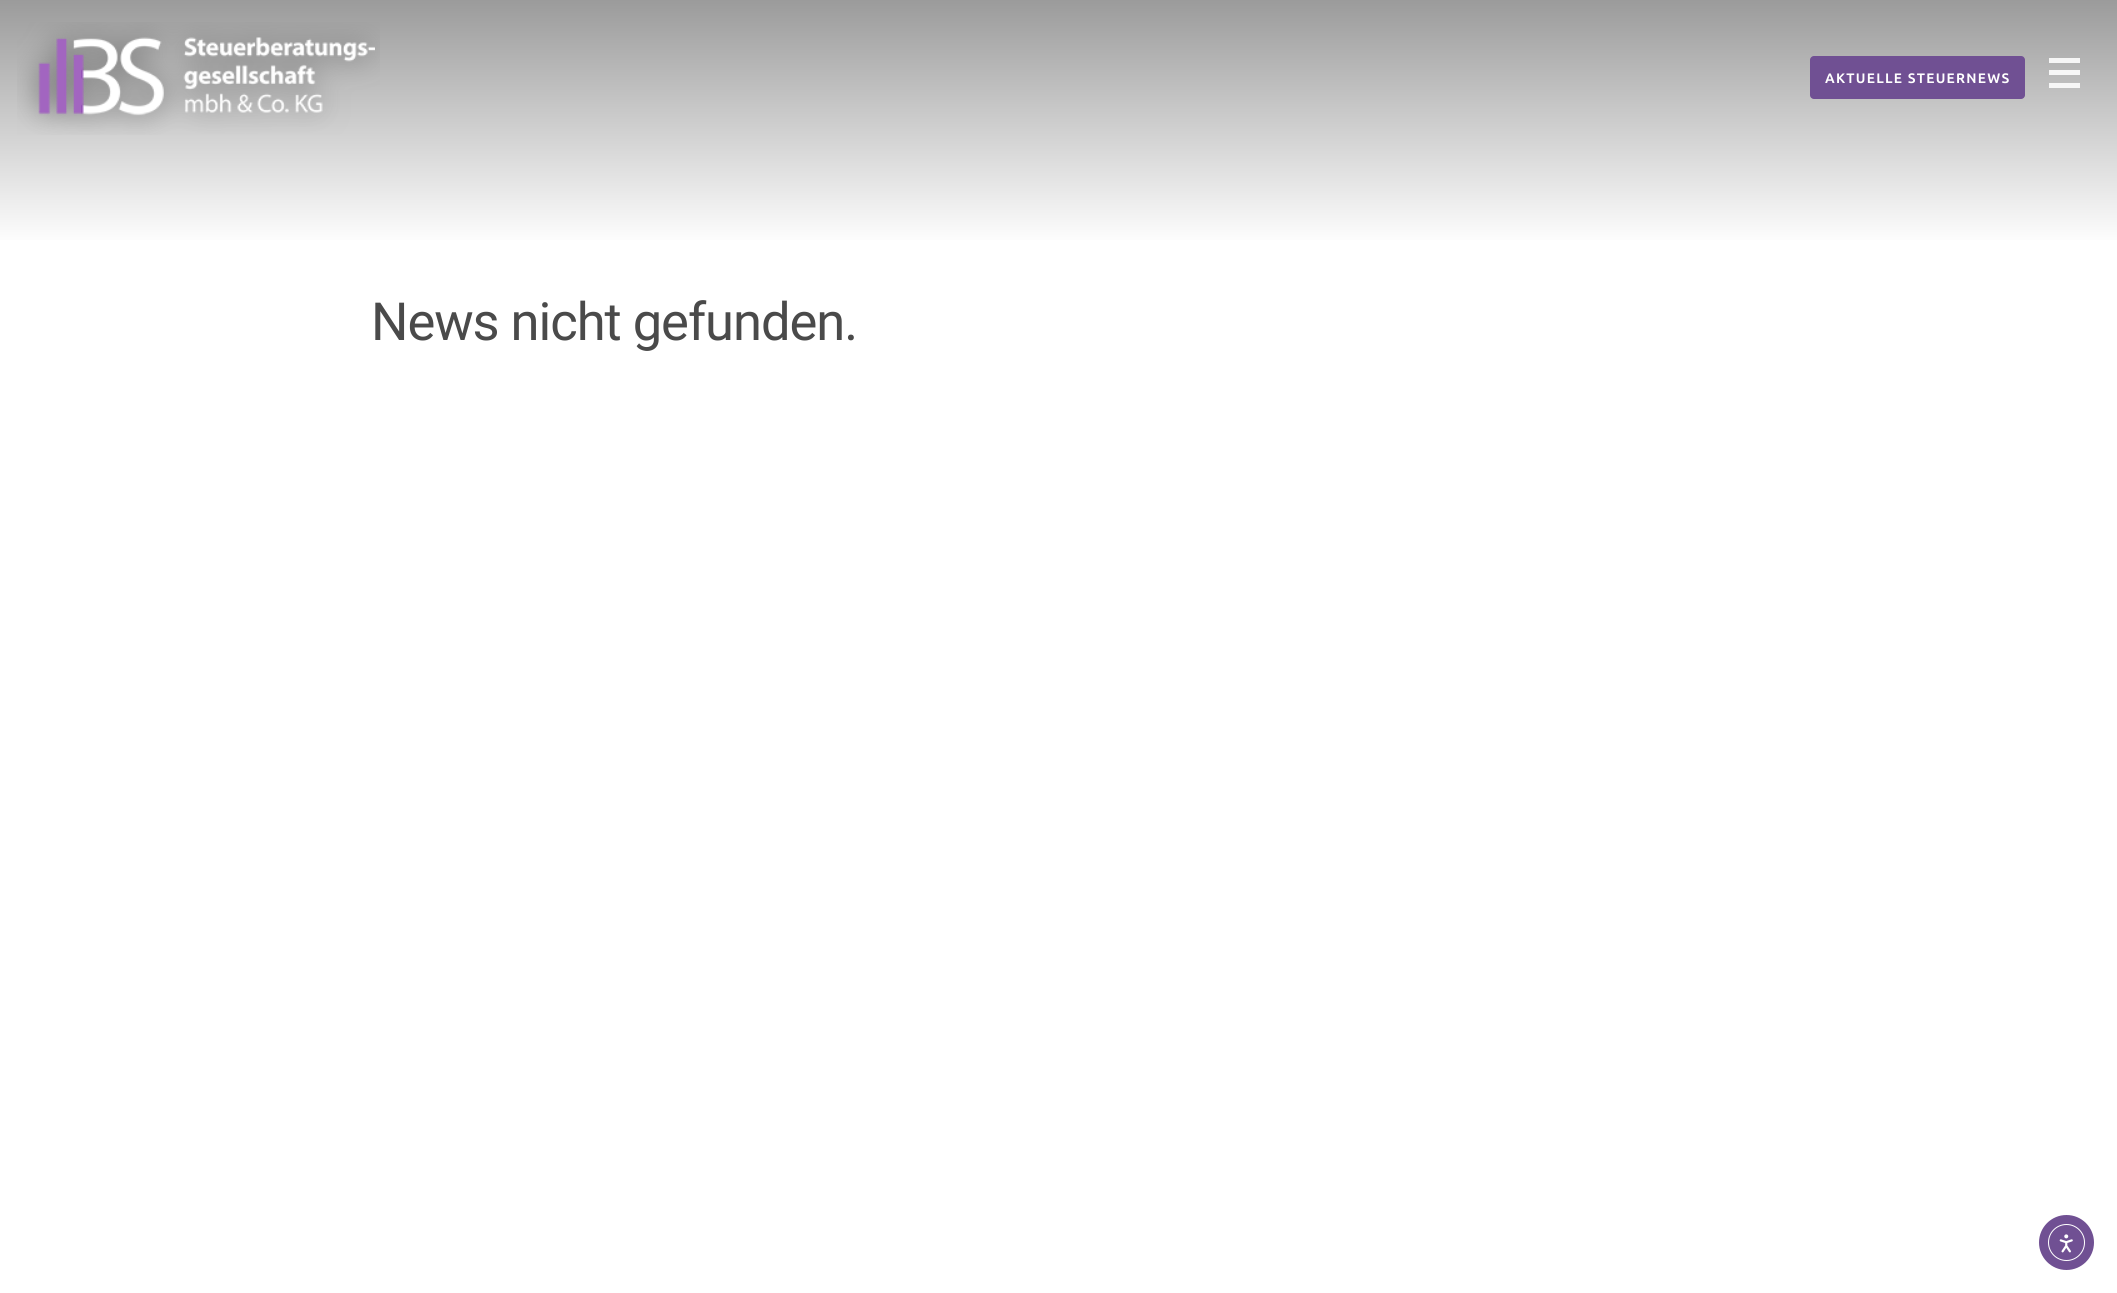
#include <cairo.h>
#include <math.h>
#include <stddef.h>


static void spaced_text(cairo_t *cr, double x, double y, const char *s, double letter, double word) {
    cairo_move_to(cr, x, y);
    while (*s) {
        char ch[5] = {0};
        int n = 0;
        do ch[n++] = *s++; while ((*s & 0xC0) == 0x80);
        cairo_show_text(cr, ch);
        cairo_rel_move_to(cr, letter + word * (*ch == ' '), 0);
    }
}

static void round_rect(cairo_t *cr, double x, double y, double w, double h, double r) {
    cairo_new_sub_path(cr);
    cairo_arc(cr, x + w - r, y + h - r, r, 0, M_PI / 2);
    cairo_arc(cr, x + r, y + h - r, r, M_PI / 2, M_PI);
    cairo_arc(cr, x + r, y + r, r, M_PI, 1.5 * M_PI);
    cairo_arc(cr, x + w - r, y + r, r, 1.5 * M_PI, 2 * M_PI);
    cairo_close_path(cr);
}

static void picture(cairo_t *cr, const char *path, double x, double y, double w, double h) {
    cairo_surface_t *image = cairo_image_surface_create_from_png(path);
    cairo_save(cr);
    cairo_set_source_surface(cr, image, x, y);
    cairo_rectangle(cr, x, y, w, h);
    cairo_fill(cr);
    cairo_restore(cr);
    cairo_surface_destroy(image);
}

int main(void) {
    cairo_surface_t *surface = cairo_image_surface_create(CAIRO_FORMAT_RGB24, 2117, 1293);
    cairo_t *cr = cairo_create(surface);
    cairo_font_options_t *options = cairo_font_options_create();
    cairo_font_options_set_hint_metrics(options, CAIRO_HINT_METRICS_OFF);
    cairo_font_options_set_hint_style(options, CAIRO_HINT_STYLE_NONE);
    cairo_set_font_options(cr, options);
    cairo_set_miter_limit(cr, 4);
    cairo_pattern_t *gradient;
    cairo_set_source_rgb(cr, 1, 1, 1);
    cairo_paint(cr);
    gradient = cairo_pattern_create_linear(1059, 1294, 1059, 0);
    cairo_pattern_add_color_stop_rgba(gradient, 0.81, 1, 1, 1, 1);
    cairo_pattern_add_color_stop_rgba(gradient, 1, 0.608, 0.608, 0.608, 1);
    cairo_set_source(cr, gradient);
    cairo_pattern_destroy(gradient);
    cairo_rectangle(cr, 0, 0, 2117, 240);
    cairo_fill(cr);
    picture(cr, "img1.png", 17, 22, 363, 113);
    cairo_set_source_rgb(cr, 0.439, 0.314, 0.576);
    round_rect(cr, 1810, 56, 215, 43, 4);
    cairo_fill(cr);
    cairo_select_font_face(cr, "Ubuntu", CAIRO_FONT_SLANT_NORMAL, CAIRO_FONT_WEIGHT_BOLD);
    cairo_set_font_size(cr, 13.75);
    cairo_set_source_rgb(cr, 1, 1, 1);
    spaced_text(cr, 1825, 83, "AKTUELLE STEUERNEWS", 1.25, 0);
    cairo_set_source_rgb(cr, 0.961, 0.961, 0.961);
    cairo_rectangle(cr, 2049, 58, 31, 5);
    cairo_fill(cr);
    cairo_rectangle(cr, 2049, 70, 31, 5);
    cairo_fill(cr);
    cairo_rectangle(cr, 2049, 83, 31, 5);
    cairo_fill(cr);
    cairo_select_font_face(cr, "Roboto", CAIRO_FONT_SLANT_NORMAL, CAIRO_FONT_WEIGHT_NORMAL);
    cairo_set_font_size(cr, 52.5);
    cairo_set_source_rgb(cr, 0.29, 0.29, 0.29);
    spaced_text(cr, 371, 340, "News nicht gefunden.", -1.05, 0);
    cairo_set_source_rgb(cr, 0.439, 0.314, 0.576);
    cairo_new_path(cr);
    cairo_arc(cr, 2066.5, 1242.5, 27.5, 0, 2 * M_PI);
    cairo_fill(cr);
    cairo_arc(cr, 2066.5, 1242.5, 18, 0, 2 * M_PI);
    cairo_set_source_rgb(cr, 1, 1, 1);
    cairo_set_line_width(cr, 1);
    cairo_stroke(cr);
    picture(cr, "img2.png", 2059, 1234, 14, 19);
    cairo_surface_write_to_png(surface, "page.png");
    cairo_font_options_destroy(options);
    cairo_destroy(cr);
    cairo_surface_destroy(surface);
    return 0;
}
